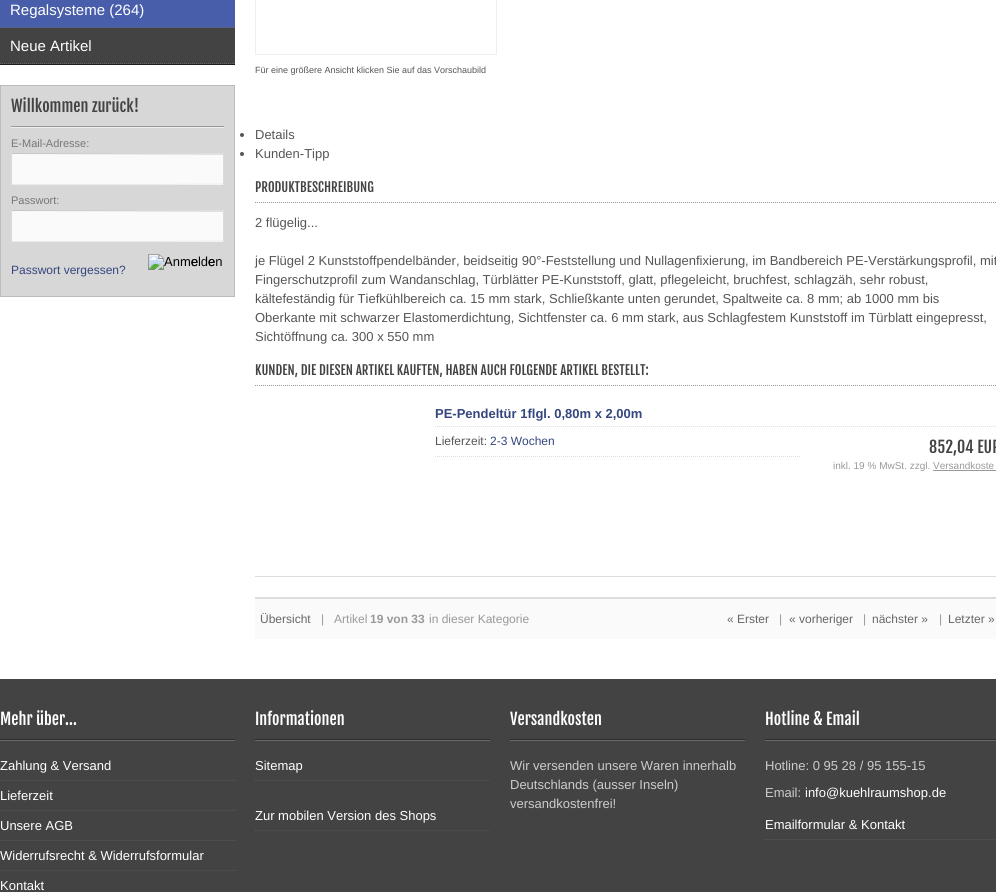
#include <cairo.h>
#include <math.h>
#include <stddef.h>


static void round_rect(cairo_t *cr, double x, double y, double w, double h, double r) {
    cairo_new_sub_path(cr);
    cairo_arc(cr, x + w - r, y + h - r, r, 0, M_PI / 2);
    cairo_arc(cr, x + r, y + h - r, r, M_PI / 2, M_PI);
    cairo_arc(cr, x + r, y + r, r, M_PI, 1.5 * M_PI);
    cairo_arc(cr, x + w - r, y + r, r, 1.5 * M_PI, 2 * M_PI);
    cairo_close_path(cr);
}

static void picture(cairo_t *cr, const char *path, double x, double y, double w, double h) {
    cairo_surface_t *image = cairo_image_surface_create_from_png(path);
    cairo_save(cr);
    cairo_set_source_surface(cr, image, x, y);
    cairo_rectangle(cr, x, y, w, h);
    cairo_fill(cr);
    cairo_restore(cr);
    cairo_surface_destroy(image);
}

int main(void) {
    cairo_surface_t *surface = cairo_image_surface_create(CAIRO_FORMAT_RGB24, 996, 892);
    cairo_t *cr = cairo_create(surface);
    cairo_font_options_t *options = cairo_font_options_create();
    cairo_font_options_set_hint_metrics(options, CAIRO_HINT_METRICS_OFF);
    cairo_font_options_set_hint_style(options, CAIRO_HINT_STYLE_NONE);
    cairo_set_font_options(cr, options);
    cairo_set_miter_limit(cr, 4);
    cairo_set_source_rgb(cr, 1, 1, 1);
    cairo_paint(cr);
    cairo_set_source_rgb(cr, 0.263, 0.263, 0.263);
    cairo_rectangle(cr, 0, 28, 235, 36);
    cairo_fill(cr);
    cairo_set_source_rgb(cr, 0.114, 0.114, 0.114);
    cairo_rectangle(cr, 0, 64, 235, 1);
    cairo_fill(cr);
    cairo_set_source_rgb(cr, 0.282, 0.369, 0.667);
    cairo_rectangle(cr, 0, 0, 235, 28);
    cairo_fill(cr);
    cairo_new_path(cr);
    cairo_move_to(cr, 0, 27.5);
    cairo_line_to(cr, 235, 27.5);
    cairo_set_source_rgb(cr, 0.396, 0.396, 0.396);
    cairo_set_line_width(cr, 1);
    cairo_set_dash(cr, (double[]){1, 1}, 2, 0);
    cairo_stroke(cr);
    cairo_select_font_face(cr, "Arimo", CAIRO_FONT_SLANT_NORMAL, CAIRO_FONT_WEIGHT_NORMAL);
    cairo_set_font_size(cr, 15);
    cairo_set_source_rgb(cr, 1, 1, 1);
    cairo_move_to(cr, 10, 15);
    cairo_show_text(cr, "Regalsysteme (264)");
    cairo_new_path(cr);
    cairo_move_to(cr, 0, 63.5);
    cairo_line_to(cr, 235, 63.5);
    cairo_set_source_rgb(cr, 0.396, 0.396, 0.396);
    cairo_stroke(cr);
    cairo_set_source_rgb(cr, 1, 1, 1);
    cairo_move_to(cr, 10, 51);
    cairo_show_text(cr, "Neue Artikel");
    cairo_set_source_rgb(cr, 0.843, 0.843, 0.843);
    cairo_rectangle(cr, 0.5, 85.5, 234, 211);
    cairo_fill_preserve(cr);
    cairo_set_source_rgb(cr, 0.733, 0.733, 0.733);
    cairo_set_dash(cr, NULL, 0, 0);
    cairo_stroke(cr);
    cairo_select_font_face(cr, "Fjalla One", CAIRO_FONT_SLANT_NORMAL, CAIRO_FONT_WEIGHT_NORMAL);
    cairo_set_font_size(cr, 16);
    cairo_set_source_rgb(cr, 0.263, 0.263, 0.263);
    cairo_move_to(cr, 11, 112);
    cairo_show_text(cr, "Willkommen zurück!");
    cairo_set_source_rgb(cr, 0.933, 0.933, 0.933);
    cairo_rectangle(cr, 11, 127, 213, 1);
    cairo_fill(cr);
    cairo_set_source_rgb(cr, 0.596, 0.596, 0.596);
    cairo_rectangle(cr, 11, 126, 213, 1);
    cairo_fill(cr);
    cairo_select_font_face(cr, "Arimo", CAIRO_FONT_SLANT_NORMAL, CAIRO_FONT_WEIGHT_NORMAL);
    cairo_set_font_size(cr, 11);
    cairo_set_source_rgb(cr, 0.463, 0.463, 0.463);
    cairo_move_to(cr, 11, 147);
    cairo_show_text(cr, "E-Mail-Adresse:");
    cairo_set_source_rgb(cr, 0.98, 0.98, 0.98);
    round_rect(cr, 11, 153, 213, 32, 2);
    cairo_fill(cr);
    cairo_new_path(cr);
    cairo_move_to(cr, 12, 154);
    cairo_line_to(cr, 13, 153.5);
    cairo_line_to(cr, 223, 154);
    cairo_set_source_rgb(cr, 0.776, 0.776, 0.776);
    cairo_stroke(cr);
    cairo_new_path(cr);
    cairo_move_to(cr, 223, 154);
    cairo_line_to(cr, 223.5, 155);
    cairo_line_to(cr, 223.5, 183);
    cairo_line_to(cr, 223, 184);
    cairo_set_source_rgb(cr, 0.855, 0.855, 0.855);
    cairo_stroke(cr);
    cairo_new_path(cr);
    cairo_move_to(cr, 223, 184);
    cairo_line_to(cr, 152.5, 184.5);
    cairo_line_to(cr, 13, 184.5);
    cairo_line_to(cr, 12, 184);
    cairo_set_source_rgb(cr, 0.918, 0.918, 0.918);
    cairo_stroke(cr);
    cairo_new_path(cr);
    cairo_move_to(cr, 12, 184);
    cairo_line_to(cr, 11.5, 183);
    cairo_line_to(cr, 11.5, 155);
    cairo_line_to(cr, 12, 154);
    cairo_set_source_rgb(cr, 0.855, 0.855, 0.855);
    cairo_stroke(cr);
    cairo_set_source_rgb(cr, 0.463, 0.463, 0.463);
    cairo_move_to(cr, 11, 204);
    cairo_show_text(cr, "Passwort:");
    cairo_set_source_rgb(cr, 0.98, 0.98, 0.98);
    round_rect(cr, 11, 210, 213, 32, 2);
    cairo_fill(cr);
    cairo_new_path(cr);
    cairo_move_to(cr, 12, 211);
    cairo_line_to(cr, 13, 210.5);
    cairo_line_to(cr, 223, 211);
    cairo_set_source_rgb(cr, 0.776, 0.776, 0.776);
    cairo_stroke(cr);
    cairo_new_path(cr);
    cairo_move_to(cr, 223, 211);
    cairo_line_to(cr, 223.5, 212);
    cairo_line_to(cr, 223.5, 240);
    cairo_line_to(cr, 223, 241);
    cairo_set_source_rgb(cr, 0.855, 0.855, 0.855);
    cairo_stroke(cr);
    cairo_new_path(cr);
    cairo_move_to(cr, 223, 241);
    cairo_line_to(cr, 152.5, 241.5);
    cairo_line_to(cr, 13, 241.5);
    cairo_line_to(cr, 12, 241);
    cairo_set_source_rgb(cr, 0.918, 0.918, 0.918);
    cairo_stroke(cr);
    cairo_new_path(cr);
    cairo_move_to(cr, 12, 241);
    cairo_line_to(cr, 11.5, 240);
    cairo_line_to(cr, 11.5, 212);
    cairo_line_to(cr, 12, 211);
    cairo_set_source_rgb(cr, 0.855, 0.855, 0.855);
    cairo_stroke(cr);
    picture(cr, "img1.png", 148, 254, 74, 16);
    cairo_set_font_size(cr, 13);
    cairo_set_source_rgb(cr, 0, 0, 0);
    cairo_move_to(cr, 191, 266);
    cairo_show_text(cr, "e");
    cairo_move_to(cr, 208, 266);
    cairo_show_text(cr, "e");
    cairo_set_font_size(cr, 12);
    cairo_set_source_rgb(cr, 0.208, 0.275, 0.494);
    cairo_move_to(cr, 11, 274);
    cairo_show_text(cr, "Passwort vergessen?");
    cairo_rectangle(cr, 255.5, -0.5, 241, 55);
    cairo_set_source_rgb(cr, 0.933, 0.933, 0.933);
    cairo_stroke(cr);
    cairo_set_font_size(cr, 9);
    cairo_set_source_rgb(cr, 0.333, 0.333, 0.333);
    cairo_move_to(cr, 255, 73);
    cairo_show_text(cr, "Für eine größere Ansicht klicken Sie auf das Vorschaubild");
    cairo_new_path(cr);
    cairo_arc(cr, 242, 135, 2, 0, 2 * M_PI);
    cairo_fill(cr);
    cairo_set_font_size(cr, 13);
    cairo_move_to(cr, 255, 139);
    cairo_show_text(cr, "Details");
    cairo_new_path(cr);
    cairo_arc(cr, 242, 154, 2, 0, 2 * M_PI);
    cairo_fill(cr);
    cairo_move_to(cr, 255, 158);
    cairo_show_text(cr, "Kunden-Tipp");
    cairo_new_path(cr);
    cairo_move_to(cr, 255, 202.5);
    cairo_line_to(cr, 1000, 202.5);
    cairo_set_source_rgb(cr, 0.6, 0.6, 0.6);
    cairo_set_dash(cr, (double[]){1, 1}, 2, 0);
    cairo_stroke(cr);
    cairo_select_font_face(cr, "Fjalla One", CAIRO_FONT_SLANT_NORMAL, CAIRO_FONT_WEIGHT_NORMAL);
    cairo_set_source_rgb(cr, 0.263, 0.263, 0.263);
    cairo_move_to(cr, 255, 192);
    cairo_show_text(cr, "PRODUKTBESCHREIBUNG");
    cairo_select_font_face(cr, "Arimo", CAIRO_FONT_SLANT_NORMAL, CAIRO_FONT_WEIGHT_NORMAL);
    cairo_set_source_rgb(cr, 0.333, 0.333, 0.333);
    cairo_move_to(cr, 255, 227);
    cairo_show_text(cr, "2 flügelig...");
    cairo_move_to(cr, 255, 265);
    cairo_show_text(cr, "je Flügel 2 Kunststoffpendelbänder, beidseitig 90°-Feststellung und Nullagenfixierung, im Bandbereich PE-Verstärkungsprofil, mit");
    cairo_move_to(cr, 255, 284);
    cairo_show_text(cr, "Fingerschutzprofil zum Wandanschlag, Türblätter PE-Kunststoff, glatt, pflegeleicht, bruchfest, schlagzäh, sehr robust,");
    cairo_move_to(cr, 255, 303);
    cairo_show_text(cr, "kältefeständig für Tiefkühlbereich ca. 15 mm stark, Schließkante unten gerundet, Spaltweite ca. 8 mm; ab 1000 mm bis");
    cairo_move_to(cr, 255, 322);
    cairo_show_text(cr, "Oberkante mit schwarzer Elastomerdichtung, Sichtfenster ca. 6 mm stark, aus Schlagfestem Kunststoff im Türblatt eingepresst,");
    cairo_move_to(cr, 255, 341);
    cairo_show_text(cr, "Sichtöffnung ca. 300 x 550 mm");
    cairo_new_path(cr);
    cairo_move_to(cr, 255, 385.5);
    cairo_line_to(cr, 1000, 385.5);
    cairo_set_source_rgb(cr, 0.6, 0.6, 0.6);
    cairo_stroke(cr);
    cairo_select_font_face(cr, "Fjalla One", CAIRO_FONT_SLANT_NORMAL, CAIRO_FONT_WEIGHT_NORMAL);
    cairo_set_source_rgb(cr, 0.263, 0.263, 0.263);
    cairo_move_to(cr, 255, 375);
    cairo_show_text(cr, "KUNDEN, DIE DIESEN ARTIKEL KAUFTEN, HABEN AUCH FOLGENDE ARTIKEL BESTELLT:");
    cairo_set_source_rgb(cr, 0.867, 0.867, 0.867);
    cairo_rectangle(cr, 255, 576, 741, 1);
    cairo_fill(cr);
    cairo_new_path(cr);
    cairo_move_to(cr, 435, 426.5);
    cairo_line_to(cr, 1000, 426.5);
    cairo_stroke(cr);
    cairo_select_font_face(cr, "Arimo", CAIRO_FONT_SLANT_NORMAL, CAIRO_FONT_WEIGHT_BOLD);
    cairo_set_source_rgb(cr, 0.208, 0.275, 0.494);
    cairo_move_to(cr, 435, 418);
    cairo_show_text(cr, "PE-Pendeltür 1flgl. 0,80m x 2,00m");
    cairo_new_path(cr);
    cairo_move_to(cr, 435, 456.5);
    cairo_line_to(cr, 800, 456.5);
    cairo_set_source_rgb(cr, 0.867, 0.867, 0.867);
    cairo_stroke(cr);
    cairo_select_font_face(cr, "Arimo", CAIRO_FONT_SLANT_NORMAL, CAIRO_FONT_WEIGHT_NORMAL);
    cairo_set_font_size(cr, 12);
    cairo_set_source_rgb(cr, 0.333, 0.333, 0.333);
    cairo_move_to(cr, 435, 445);
    cairo_show_text(cr, "Lieferzeit:");
    cairo_set_source_rgb(cr, 0.208, 0.275, 0.494);
    cairo_move_to(cr, 490, 445);
    cairo_show_text(cr, "2-3 Wochen");
    cairo_select_font_face(cr, "Fjalla One", CAIRO_FONT_SLANT_NORMAL, CAIRO_FONT_WEIGHT_NORMAL);
    cairo_set_font_size(cr, 16);
    cairo_set_source_rgb(cr, 0.263, 0.263, 0.263);
    cairo_move_to(cr, 929, 453);
    cairo_show_text(cr, "852,04 EUR");
    cairo_select_font_face(cr, "Arimo", CAIRO_FONT_SLANT_NORMAL, CAIRO_FONT_WEIGHT_NORMAL);
    cairo_set_font_size(cr, 10);
    cairo_set_source_rgb(cr, 0.6, 0.6, 0.6);
    cairo_move_to(cr, 833, 469);
    cairo_show_text(cr, "inkl. 19 % MwSt. zzgl. Versandkoste");
    cairo_rectangle(cr, 933, 470, 63, 1);
    cairo_fill(cr);
    cairo_set_source_rgb(cr, 0.98, 0.98, 0.98);
    cairo_rectangle(cr, 255, 599, 741, 40);
    cairo_fill(cr);
    cairo_set_source_rgb(cr, 0.867, 0.867, 0.867);
    cairo_rectangle(cr, 255, 597, 741, 2);
    cairo_fill(cr);
    cairo_set_font_size(cr, 12);
    cairo_set_source_rgb(cr, 0.4, 0.4, 0.4);
    cairo_move_to(cr, 260, 623);
    cairo_show_text(cr, "Übersicht");
    cairo_set_source_rgb(cr, 0.6, 0.6, 0.6);
    cairo_move_to(cr, 321, 623);
    cairo_show_text(cr, "|   Artikel");
    cairo_select_font_face(cr, "Arimo", CAIRO_FONT_SLANT_NORMAL, CAIRO_FONT_WEIGHT_BOLD);
    cairo_move_to(cr, 370, 623);
    cairo_show_text(cr, "19 von 33");
    cairo_select_font_face(cr, "Arimo", CAIRO_FONT_SLANT_NORMAL, CAIRO_FONT_WEIGHT_NORMAL);
    cairo_move_to(cr, 429, 623);
    cairo_show_text(cr, "in dieser Kategorie");
    cairo_set_source_rgb(cr, 0.4, 0.4, 0.4);
    cairo_move_to(cr, 727, 623);
    cairo_show_text(cr, "« Erster");
    cairo_set_source_rgb(cr, 0.6, 0.6, 0.6);
    cairo_move_to(cr, 779, 623);
    cairo_show_text(cr, "|");
    cairo_set_source_rgb(cr, 0.4, 0.4, 0.4);
    cairo_move_to(cr, 789, 623);
    cairo_show_text(cr, "« vorheriger");
    cairo_set_source_rgb(cr, 0.6, 0.6, 0.6);
    cairo_move_to(cr, 863, 623);
    cairo_show_text(cr, "|");
    cairo_set_source_rgb(cr, 0.4, 0.4, 0.4);
    cairo_move_to(cr, 872, 623);
    cairo_show_text(cr, "nächster »");
    cairo_set_source_rgb(cr, 0.6, 0.6, 0.6);
    cairo_move_to(cr, 939, 623);
    cairo_show_text(cr, "|");
    cairo_set_source_rgb(cr, 0.4, 0.4, 0.4);
    cairo_move_to(cr, 948, 623);
    cairo_show_text(cr, "Letzter »");
    cairo_set_source_rgb(cr, 0.263, 0.263, 0.263);
    cairo_rectangle(cr, 0, 679, 996, 213);
    cairo_fill(cr);
    cairo_select_font_face(cr, "Fjalla One", CAIRO_FONT_SLANT_NORMAL, CAIRO_FONT_WEIGHT_NORMAL);
    cairo_set_font_size(cr, 16);
    cairo_set_source_rgb(cr, 1, 1, 1);
    cairo_move_to(cr, 0, 725);
    cairo_show_text(cr, "Mehr über...");
    cairo_set_source_rgb(cr, 0.412, 0.412, 0.412);
    cairo_rectangle(cr, 0, 740, 235, 1);
    cairo_fill(cr);
    cairo_set_source_rgb(cr, 0.173, 0.173, 0.173);
    cairo_rectangle(cr, 0, 739, 235, 1);
    cairo_fill(cr);
    cairo_new_path(cr);
    cairo_move_to(cr, 0, 780.5);
    cairo_line_to(cr, 235, 780.5);
    cairo_set_source_rgb(cr, 0.333, 0.333, 0.333);
    cairo_stroke(cr);
    cairo_select_font_face(cr, "Arimo", CAIRO_FONT_SLANT_NORMAL, CAIRO_FONT_WEIGHT_NORMAL);
    cairo_set_font_size(cr, 13);
    cairo_set_source_rgb(cr, 1, 1, 1);
    cairo_move_to(cr, 0, 770);
    cairo_show_text(cr, "Zahlung & Versand");
    cairo_new_path(cr);
    cairo_move_to(cr, 0, 810.5);
    cairo_line_to(cr, 235, 810.5);
    cairo_set_source_rgb(cr, 0.333, 0.333, 0.333);
    cairo_stroke(cr);
    cairo_set_source_rgb(cr, 1, 1, 1);
    cairo_move_to(cr, 0, 800);
    cairo_show_text(cr, "Lieferzeit");
    cairo_new_path(cr);
    cairo_move_to(cr, 0, 840.5);
    cairo_line_to(cr, 235, 840.5);
    cairo_set_source_rgb(cr, 0.333, 0.333, 0.333);
    cairo_stroke(cr);
    cairo_set_source_rgb(cr, 1, 1, 1);
    cairo_move_to(cr, 0, 830);
    cairo_show_text(cr, "Unsere AGB");
    cairo_new_path(cr);
    cairo_move_to(cr, 0, 870.5);
    cairo_line_to(cr, 235, 870.5);
    cairo_set_source_rgb(cr, 0.333, 0.333, 0.333);
    cairo_stroke(cr);
    cairo_set_source_rgb(cr, 1, 1, 1);
    cairo_move_to(cr, 0, 860);
    cairo_show_text(cr, "Widerrufsrecht & Widerrufsformular");
    cairo_move_to(cr, 0, 890);
    cairo_show_text(cr, "Kontakt");
    cairo_select_font_face(cr, "Fjalla One", CAIRO_FONT_SLANT_NORMAL, CAIRO_FONT_WEIGHT_NORMAL);
    cairo_set_font_size(cr, 16);
    cairo_move_to(cr, 255, 725);
    cairo_show_text(cr, "Informationen");
    cairo_set_source_rgb(cr, 0.412, 0.412, 0.412);
    cairo_rectangle(cr, 255, 740, 235, 1);
    cairo_fill(cr);
    cairo_set_source_rgb(cr, 0.173, 0.173, 0.173);
    cairo_rectangle(cr, 255, 739, 235, 1);
    cairo_fill(cr);
    cairo_new_path(cr);
    cairo_move_to(cr, 255, 780.5);
    cairo_line_to(cr, 490, 780.5);
    cairo_set_source_rgb(cr, 0.333, 0.333, 0.333);
    cairo_stroke(cr);
    cairo_select_font_face(cr, "Arimo", CAIRO_FONT_SLANT_NORMAL, CAIRO_FONT_WEIGHT_NORMAL);
    cairo_set_font_size(cr, 13);
    cairo_set_source_rgb(cr, 1, 1, 1);
    cairo_move_to(cr, 255, 770);
    cairo_show_text(cr, "Sitemap");
    cairo_new_path(cr);
    cairo_move_to(cr, 255, 830.5);
    cairo_line_to(cr, 490, 830.5);
    cairo_set_source_rgb(cr, 0.333, 0.333, 0.333);
    cairo_stroke(cr);
    cairo_set_source_rgb(cr, 1, 1, 1);
    cairo_move_to(cr, 255, 820);
    cairo_show_text(cr, "Zur mobilen Version des Shops");
    cairo_select_font_face(cr, "Fjalla One", CAIRO_FONT_SLANT_NORMAL, CAIRO_FONT_WEIGHT_NORMAL);
    cairo_set_font_size(cr, 16);
    cairo_move_to(cr, 510, 725);
    cairo_show_text(cr, "Versandkosten");
    cairo_set_source_rgb(cr, 0.412, 0.412, 0.412);
    cairo_rectangle(cr, 510, 740, 235, 1);
    cairo_fill(cr);
    cairo_set_source_rgb(cr, 0.173, 0.173, 0.173);
    cairo_rectangle(cr, 510, 739, 235, 1);
    cairo_fill(cr);
    cairo_select_font_face(cr, "Arimo", CAIRO_FONT_SLANT_NORMAL, CAIRO_FONT_WEIGHT_NORMAL);
    cairo_set_font_size(cr, 13);
    cairo_set_source_rgb(cr, 0.8, 0.8, 0.8);
    cairo_move_to(cr, 510, 770);
    cairo_show_text(cr, "Wir versenden unsere Waren innerhalb");
    cairo_move_to(cr, 510, 789);
    cairo_show_text(cr, "Deutschlands (ausser Inseln)");
    cairo_move_to(cr, 510, 808);
    cairo_show_text(cr, "versandkostenfrei!");
    cairo_select_font_face(cr, "Fjalla One", CAIRO_FONT_SLANT_NORMAL, CAIRO_FONT_WEIGHT_NORMAL);
    cairo_set_font_size(cr, 16);
    cairo_set_source_rgb(cr, 1, 1, 1);
    cairo_move_to(cr, 765, 725);
    cairo_show_text(cr, "Hotline & Email");
    cairo_set_source_rgb(cr, 0.412, 0.412, 0.412);
    cairo_rectangle(cr, 765, 740, 231, 1);
    cairo_fill(cr);
    cairo_set_source_rgb(cr, 0.173, 0.173, 0.173);
    cairo_rectangle(cr, 765, 739, 231, 1);
    cairo_fill(cr);
    cairo_select_font_face(cr, "Arimo", CAIRO_FONT_SLANT_NORMAL, CAIRO_FONT_WEIGHT_NORMAL);
    cairo_set_font_size(cr, 13);
    cairo_set_source_rgb(cr, 0.8, 0.8, 0.8);
    cairo_move_to(cr, 765, 770);
    cairo_show_text(cr, "Hotline: 0 95 28 / 95 155-15");
    cairo_move_to(cr, 765, 797);
    cairo_show_text(cr, "Email:");
    cairo_set_source_rgb(cr, 1, 1, 1);
    cairo_move_to(cr, 805, 797);
    cairo_show_text(cr, "info@kuehlraumshop.de");
    cairo_new_path(cr);
    cairo_move_to(cr, 765, 839.5);
    cairo_line_to(cr, 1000, 839.5);
    cairo_set_source_rgb(cr, 0.333, 0.333, 0.333);
    cairo_stroke(cr);
    cairo_set_source_rgb(cr, 1, 1, 1);
    cairo_move_to(cr, 765, 829);
    cairo_show_text(cr, "Emailformular & Kontakt");
    cairo_surface_write_to_png(surface, "page.png");
    cairo_font_options_destroy(options);
    cairo_destroy(cr);
    cairo_surface_destroy(surface);
    return 0;
}
